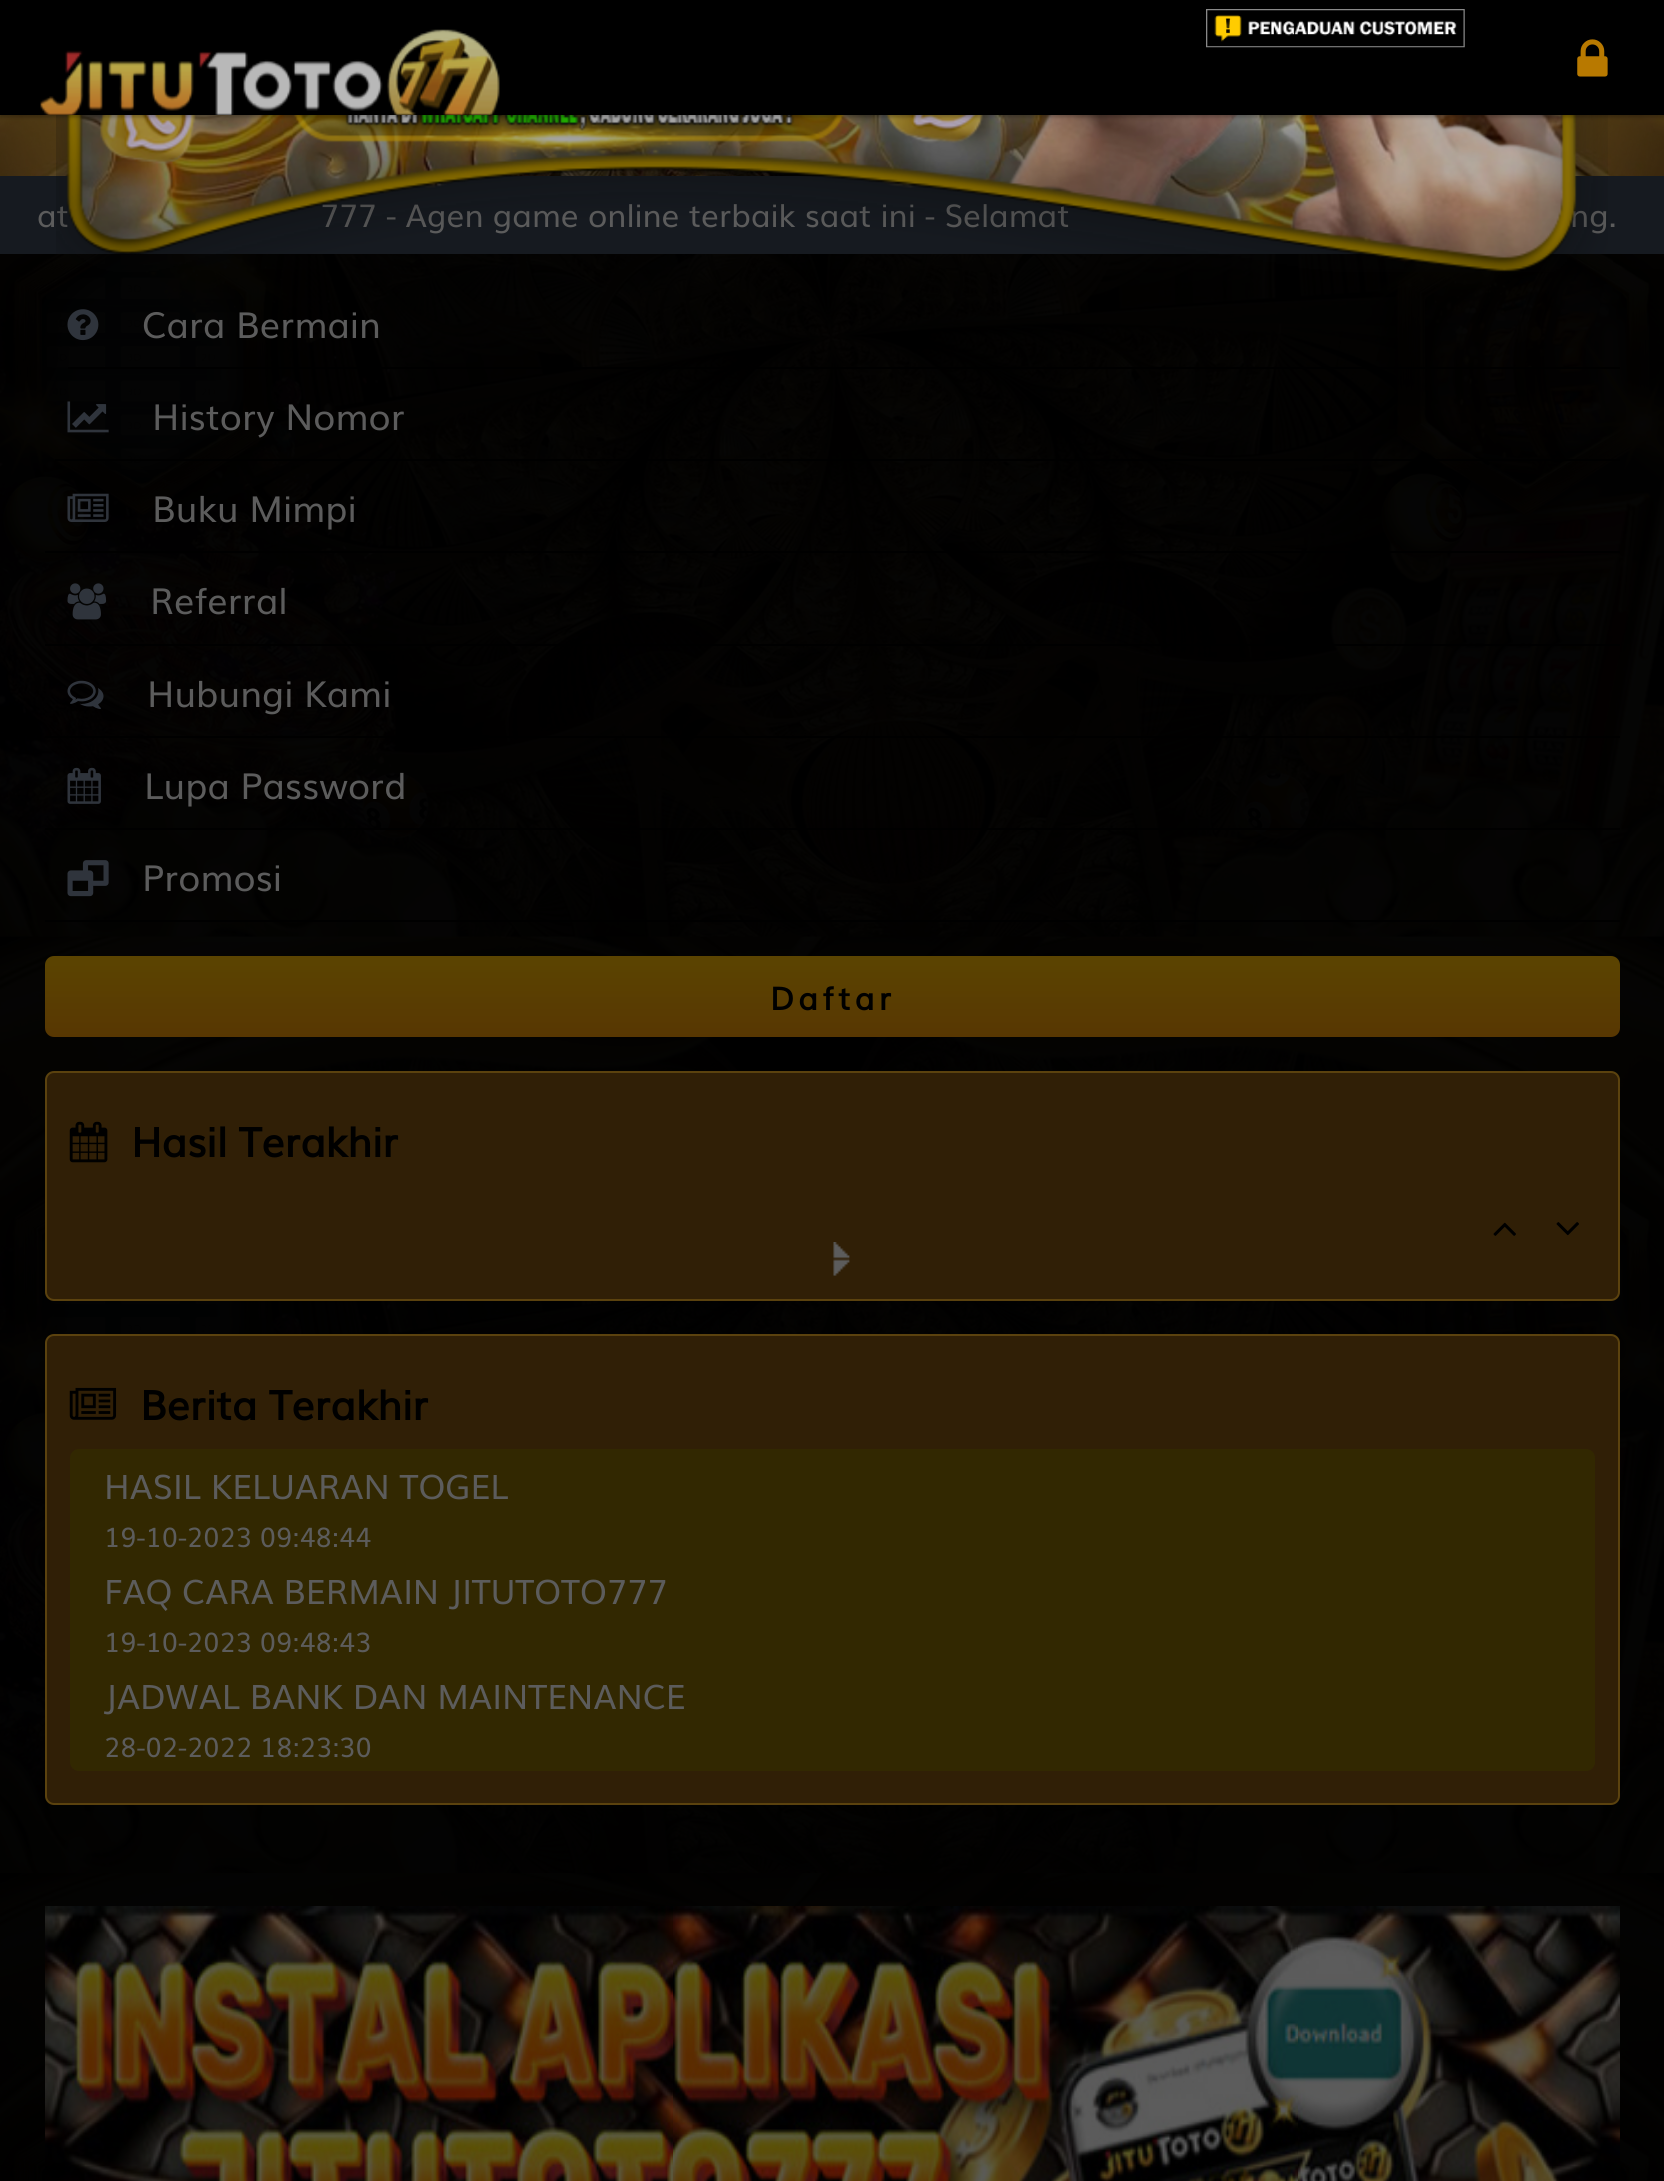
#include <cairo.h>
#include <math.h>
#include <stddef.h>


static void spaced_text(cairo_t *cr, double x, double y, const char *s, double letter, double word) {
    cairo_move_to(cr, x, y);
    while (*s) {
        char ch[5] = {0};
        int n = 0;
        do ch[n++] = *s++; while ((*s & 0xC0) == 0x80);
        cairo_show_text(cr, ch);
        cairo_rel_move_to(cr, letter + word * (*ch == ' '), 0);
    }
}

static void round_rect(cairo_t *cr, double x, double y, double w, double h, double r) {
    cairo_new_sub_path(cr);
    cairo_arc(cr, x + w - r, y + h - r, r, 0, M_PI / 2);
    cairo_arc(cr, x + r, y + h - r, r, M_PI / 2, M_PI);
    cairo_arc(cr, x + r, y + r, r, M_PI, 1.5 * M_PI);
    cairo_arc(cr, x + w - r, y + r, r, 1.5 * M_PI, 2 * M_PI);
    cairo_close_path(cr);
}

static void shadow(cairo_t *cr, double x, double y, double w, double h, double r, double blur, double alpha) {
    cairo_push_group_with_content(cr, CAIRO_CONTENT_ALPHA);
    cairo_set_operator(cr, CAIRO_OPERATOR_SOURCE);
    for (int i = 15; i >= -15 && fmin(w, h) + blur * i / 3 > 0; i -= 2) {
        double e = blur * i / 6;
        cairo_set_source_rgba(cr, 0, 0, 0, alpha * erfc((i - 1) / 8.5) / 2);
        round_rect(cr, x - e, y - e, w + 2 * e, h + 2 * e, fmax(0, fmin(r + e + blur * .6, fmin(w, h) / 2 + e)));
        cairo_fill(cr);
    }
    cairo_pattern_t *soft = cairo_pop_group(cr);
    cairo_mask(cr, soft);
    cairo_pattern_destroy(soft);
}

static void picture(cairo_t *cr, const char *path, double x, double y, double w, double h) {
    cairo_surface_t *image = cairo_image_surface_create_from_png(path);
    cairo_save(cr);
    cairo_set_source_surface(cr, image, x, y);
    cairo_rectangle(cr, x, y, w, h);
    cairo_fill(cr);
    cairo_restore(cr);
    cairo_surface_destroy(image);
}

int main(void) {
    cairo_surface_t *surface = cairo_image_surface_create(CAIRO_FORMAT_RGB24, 1664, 2181);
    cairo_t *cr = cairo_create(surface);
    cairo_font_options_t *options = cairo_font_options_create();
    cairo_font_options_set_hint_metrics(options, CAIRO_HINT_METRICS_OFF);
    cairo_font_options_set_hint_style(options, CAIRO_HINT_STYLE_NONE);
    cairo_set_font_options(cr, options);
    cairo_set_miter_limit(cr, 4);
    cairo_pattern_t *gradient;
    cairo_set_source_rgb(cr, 1, 1, 1);
    cairo_paint(cr);
    picture(cr, "img1.png", 0, 115, 1664, 2066);
    cairo_set_source_rgb(cr, 0.086, 0.102, 0.125);
    cairo_rectangle(cr, 0, 176, 1664, 78);
    cairo_fill(cr);
    cairo_select_font_face(cr, "Muli", CAIRO_FONT_SLANT_NORMAL, CAIRO_FONT_WEIGHT_NORMAL);
    cairo_set_font_size(cr, 31.5);
    cairo_set_source_rgb(cr, 0.361, 0.361, 0.361);
    cairo_move_to(cr, 37, 227);
    cairo_show_text(cr, "at");
    cairo_move_to(cr, 320, 227);
    cairo_show_text(cr, "777 - Agen game online terbaik saat ini - Selamat");
    cairo_move_to(cr, 1570, 227);
    cairo_show_text(cr, "ng.");
    cairo_set_source_rgba(cr, 0, 0, 0, 0.75);
    cairo_rectangle(cr, 0, 254, 1664, 1927);
    cairo_fill(cr);
    gradient = cairo_pattern_create_linear(832, 254, 833, 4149);
    cairo_pattern_add_color_stop_rgba(gradient, 0, 0, 0, 0, 0.75);
    cairo_pattern_add_color_stop_rgba(gradient, 1, 0, 0, 0, 1);
    cairo_set_source(cr, gradient);
    cairo_pattern_destroy(gradient);
    cairo_rectangle(cr, 0, 254, 1664, 1927);
    cairo_fill(cr);
    picture(cr, "img5.png", 56, 115, 1552, 157);
    cairo_set_source_rgb(cr, 0, 0, 0);
    shadow(cr, 0, 2, 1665, 115, 0, 2, 0.3);
    cairo_set_source_rgb(cr, 0, 0, 0);
    cairo_rectangle(cr, 0, 0, 1664, 115);
    cairo_fill(cr);
    picture(cr, "img2.png", 40, 29, 460, 86);
    picture(cr, "img3.png", 1577, 39, 31, 38);
    picture(cr, "img4.png", 1206, 9, 259, 39);
    picture(cr, "img6.png", 45, 1906, 1575, 275);
    cairo_rectangle(cr, 68, 367, 1552, 2);
    cairo_fill(cr);
    picture(cr, "img7.png", 67, 309, 32, 32);
    cairo_set_font_size(cr, 36);
    cairo_set_source_rgb(cr, 0.361, 0.361, 0.361);
    cairo_move_to(cr, 142, 338);
    cairo_show_text(cr, "Cara Bermain");
    cairo_set_source_rgb(cr, 0, 0, 0);
    cairo_rectangle(cr, 55, 459, 1565, 2);
    cairo_fill(cr);
    picture(cr, "img8.png", 67, 401, 42, 32);
    cairo_set_source_rgb(cr, 0.361, 0.361, 0.361);
    cairo_move_to(cr, 152, 430);
    cairo_show_text(cr, "History Nomor");
    cairo_set_source_rgb(cr, 0, 0, 0);
    cairo_rectangle(cr, 45, 551, 1575, 2);
    cairo_fill(cr);
    picture(cr, "img9.png", 67, 493, 42, 29);
    cairo_set_source_rgb(cr, 0.361, 0.361, 0.361);
    cairo_move_to(cr, 152, 522);
    cairo_show_text(cr, "Buku Mimpi");
    cairo_set_source_rgb(cr, 0, 0, 0);
    cairo_rectangle(cr, 45, 644, 1575, 2);
    cairo_fill(cr);
    picture(cr, "img10.png", 67, 583, 40, 37);
    cairo_set_source_rgb(cr, 0.361, 0.361, 0.361);
    cairo_move_to(cr, 150, 614);
    cairo_show_text(cr, "Referral");
    cairo_set_source_rgb(cr, 0, 0, 0);
    cairo_rectangle(cr, 45, 736, 1575, 2);
    cairo_fill(cr);
    picture(cr, "img11.png", 67, 680, 37, 29);
    cairo_set_source_rgb(cr, 0.361, 0.361, 0.361);
    cairo_move_to(cr, 147, 707);
    cairo_show_text(cr, "Hubungi Kami");
    cairo_set_source_rgb(cr, 0, 0, 0);
    cairo_rectangle(cr, 45, 828, 1575, 2);
    cairo_fill(cr);
    picture(cr, "img12.png", 67, 767, 34, 37);
    cairo_set_source_rgb(cr, 0.361, 0.361, 0.361);
    cairo_move_to(cr, 144, 799);
    cairo_show_text(cr, "Lupa Password");
    cairo_set_source_rgb(cr, 0, 0, 0);
    cairo_rectangle(cr, 45, 920, 1575, 2);
    cairo_fill(cr);
    picture(cr, "img13.png", 67, 860, 42, 37);
    cairo_set_source_rgb(cr, 0.361, 0.361, 0.361);
    cairo_move_to(cr, 142, 891);
    cairo_show_text(cr, "Promosi");
    gradient = cairo_pattern_create_linear(833, 956, 833, 1037);
    cairo_pattern_add_color_stop_rgba(gradient, 0, 0.357, 0.267, 0.004, 1);
    cairo_pattern_add_color_stop_rgba(gradient, 1, 0.345, 0.216, 0.008, 1);
    cairo_set_source(cr, gradient);
    cairo_pattern_destroy(gradient);
    round_rect(cr, 45, 956, 1575, 81, 9);
    cairo_fill(cr);
    cairo_select_font_face(cr, "Muli", CAIRO_FONT_SLANT_NORMAL, CAIRO_FONT_WEIGHT_BOLD);
    cairo_set_font_size(cr, 31.5);
    cairo_set_source_rgb(cr, 0, 0, 0);
    spaced_text(cr, 770, 1010, "Daftar", 4.5, 0);
    cairo_set_source_rgb(cr, 0.188, 0.122, 0.024);
    round_rect(cr, 46, 1072, 1573, 228, 8);
    cairo_fill_preserve(cr);
    cairo_set_source_rgb(cr, 0.357, 0.259, 0.055);
    cairo_stroke(cr);
    picture(cr, "img14.png", 69, 1121, 39, 42);
    cairo_set_font_size(cr, 40.5);
    cairo_set_source_rgb(cr, 0, 0, 0);
    cairo_move_to(cr, 131, 1157);
    cairo_show_text(cr, "Hasil Terakhir");
    picture(cr, "img15.png", 1493, 1222, 23, 14);
    picture(cr, "img16.png", 1556, 1222, 23, 14);
    picture(cr, "img17.png", 833, 1242, 17, 34);
    cairo_set_source_rgb(cr, 0.188, 0.122, 0.024);
    round_rect(cr, 46, 1335, 1573, 469, 8);
    cairo_fill_preserve(cr);
    cairo_set_source_rgb(cr, 0.357, 0.259, 0.055);
    cairo_stroke(cr);
    picture(cr, "img18.png", 69, 1387, 48, 33);
    cairo_set_source_rgb(cr, 0, 0, 0);
    cairo_move_to(cr, 140, 1420);
    cairo_show_text(cr, "Berita Terakhir");
    cairo_set_source_rgb(cr, 0.196, 0.157, 0.004);
    round_rect(cr, 70, 1449, 1525, 322, 9);
    cairo_fill(cr);
    cairo_select_font_face(cr, "Muli", CAIRO_FONT_SLANT_NORMAL, CAIRO_FONT_WEIGHT_NORMAL);
    cairo_set_font_size(cr, 33.75);
    cairo_set_source_rgb(cr, 0.361, 0.361, 0.361);
    cairo_move_to(cr, 104, 1499);
    cairo_show_text(cr, "HASIL KELUARAN TOGEL");
    cairo_set_font_size(cr, 27);
    cairo_move_to(cr, 104, 1547);
    cairo_show_text(cr, "19-10-2023 09:48:44");
    cairo_set_font_size(cr, 33.75);
    cairo_move_to(cr, 104, 1604);
    cairo_show_text(cr, "FAQ CARA BERMAIN JITUTOTO777");
    cairo_set_font_size(cr, 27);
    cairo_move_to(cr, 104, 1652);
    cairo_show_text(cr, "19-10-2023 09:48:43");
    cairo_set_font_size(cr, 33.75);
    cairo_move_to(cr, 104, 1709);
    cairo_show_text(cr, "JADWAL BANK DAN MAINTENANCE");
    cairo_set_font_size(cr, 27);
    cairo_move_to(cr, 104, 1757);
    cairo_show_text(cr, "28-02-2022 18:23:30");
    cairo_surface_write_to_png(surface, "page.png");
    cairo_font_options_destroy(options);
    cairo_destroy(cr);
    cairo_surface_destroy(surface);
    return 0;
}
